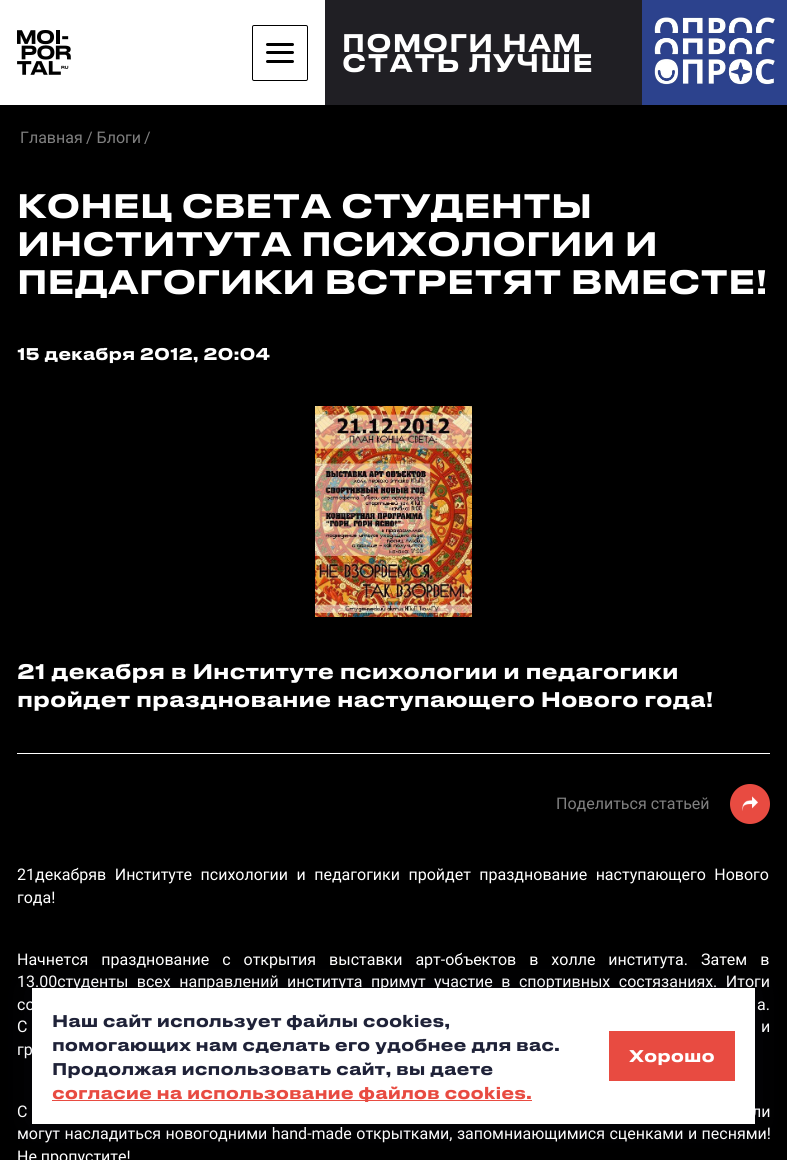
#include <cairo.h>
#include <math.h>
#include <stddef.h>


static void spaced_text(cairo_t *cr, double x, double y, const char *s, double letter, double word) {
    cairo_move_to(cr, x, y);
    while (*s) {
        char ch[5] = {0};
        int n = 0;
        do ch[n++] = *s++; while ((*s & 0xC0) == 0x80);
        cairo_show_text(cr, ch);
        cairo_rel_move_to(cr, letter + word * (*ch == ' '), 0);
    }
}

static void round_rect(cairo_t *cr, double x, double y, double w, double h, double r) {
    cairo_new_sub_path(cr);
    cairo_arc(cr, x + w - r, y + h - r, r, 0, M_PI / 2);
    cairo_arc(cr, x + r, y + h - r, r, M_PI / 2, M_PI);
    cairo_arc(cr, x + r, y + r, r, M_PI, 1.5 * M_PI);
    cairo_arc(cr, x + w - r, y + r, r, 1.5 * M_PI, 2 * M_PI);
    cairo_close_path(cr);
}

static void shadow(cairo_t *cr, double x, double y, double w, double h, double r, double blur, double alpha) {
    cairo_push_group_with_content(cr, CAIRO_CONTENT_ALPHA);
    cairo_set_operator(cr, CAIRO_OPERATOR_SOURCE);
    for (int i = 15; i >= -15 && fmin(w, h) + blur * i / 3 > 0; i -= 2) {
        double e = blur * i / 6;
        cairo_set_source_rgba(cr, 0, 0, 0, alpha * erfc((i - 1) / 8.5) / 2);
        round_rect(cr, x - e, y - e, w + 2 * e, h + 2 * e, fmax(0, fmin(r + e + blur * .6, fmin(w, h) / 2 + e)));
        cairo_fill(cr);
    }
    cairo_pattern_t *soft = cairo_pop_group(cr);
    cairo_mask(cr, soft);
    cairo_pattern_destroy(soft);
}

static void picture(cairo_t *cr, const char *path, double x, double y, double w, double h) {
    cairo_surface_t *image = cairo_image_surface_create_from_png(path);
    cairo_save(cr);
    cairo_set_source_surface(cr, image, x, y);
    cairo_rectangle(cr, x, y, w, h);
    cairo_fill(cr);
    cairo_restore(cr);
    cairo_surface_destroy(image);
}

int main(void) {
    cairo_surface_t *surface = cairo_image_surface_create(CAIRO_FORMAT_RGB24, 787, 1160);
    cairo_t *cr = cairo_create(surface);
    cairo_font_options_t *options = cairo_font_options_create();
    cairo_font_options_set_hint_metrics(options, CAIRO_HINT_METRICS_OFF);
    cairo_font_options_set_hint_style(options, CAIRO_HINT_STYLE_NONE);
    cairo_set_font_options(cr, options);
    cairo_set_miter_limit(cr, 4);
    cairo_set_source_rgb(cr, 0, 0, 0);
    cairo_paint(cr);
    cairo_set_source_rgb(cr, 1, 1, 1);
    cairo_rectangle(cr, 0, 0, 325, 105);
    cairo_fill(cr);
    picture(cr, "img1.png", 17, 30, 54, 45);
    round_rect(cr, 252.5, 25.5, 55, 55, 1.5);
    cairo_set_source_rgb(cr, 0, 0, 0);
    cairo_set_line_width(cr, 1);
    cairo_stroke(cr);
    round_rect(cr, 266, 43, 28, 3, 1.5);
    cairo_fill(cr);
    round_rect(cr, 266, 51, 28, 3, 1.5);
    cairo_fill(cr);
    round_rect(cr, 266, 60, 28, 3, 1.5);
    cairo_fill(cr);
    cairo_set_source_rgb(cr, 0.125, 0.122, 0.141);
    cairo_rectangle(cr, 325, 0, 317, 105);
    cairo_fill(cr);
    cairo_select_font_face(cr, "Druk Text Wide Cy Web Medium", CAIRO_FONT_SLANT_NORMAL, CAIRO_FONT_WEIGHT_NORMAL);
    cairo_set_font_size(cr, 24);
    cairo_set_source_rgb(cr, 1, 1, 1);
    spaced_text(cr, 342, 52, "ПОМОГИ НАМ", 1.25, 0);
    spaced_text(cr, 342, 72, "СТАТЬ ЛУЧШЕ", 1.25, 0);
    picture(cr, "img2.png", 642, 0, 145, 105);
    cairo_select_font_face(cr, "Roboto", CAIRO_FONT_SLANT_NORMAL, CAIRO_FONT_WEIGHT_NORMAL);
    cairo_set_font_size(cr, 16);
    cairo_set_source_rgb(cr, 0.502, 0.502, 0.502);
    cairo_move_to(cr, 20, 143);
    cairo_show_text(cr, "Главная");
    cairo_move_to(cr, 86, 143);
    cairo_show_text(cr, "/ Блоги");
    cairo_move_to(cr, 144, 143);
    cairo_show_text(cr, "/");
    cairo_select_font_face(cr, "Druk Text Wide Cy Web Medium", CAIRO_FONT_SLANT_NORMAL, CAIRO_FONT_WEIGHT_NORMAL);
    cairo_set_font_size(cr, 32);
    cairo_set_source_rgb(cr, 1, 1, 1);
    cairo_move_to(cr, 17, 218);
    cairo_show_text(cr, "КОНЕЦ СВЕТА СТУДЕНТЫ");
    cairo_move_to(cr, 17, 256);
    cairo_show_text(cr, "ИНСТИТУТА ПСИХОЛОГИИ И");
    cairo_move_to(cr, 17, 294);
    cairo_show_text(cr, "ПЕДАГОГИКИ ВСТРЕТЯТ ВМЕСТЕ!");
    cairo_set_font_size(cr, 16);
    cairo_move_to(cr, 17, 360);
    cairo_show_text(cr, "15 декабря 2012, 20:04");
    picture(cr, "img3.png", 315, 406, 157, 211);
    cairo_set_font_size(cr, 20);
    cairo_move_to(cr, 17, 679);
    cairo_show_text(cr, "21 декабря в Институте психологии и педагогики");
    cairo_move_to(cr, 17, 707);
    cairo_show_text(cr, "пройдет празднование наступающего Нового года!");
    cairo_rectangle(cr, 17, 753, 753, 1);
    cairo_fill(cr);
    cairo_select_font_face(cr, "Roboto", CAIRO_FONT_SLANT_NORMAL, CAIRO_FONT_WEIGHT_NORMAL);
    cairo_set_font_size(cr, 16);
    cairo_set_source_rgb(cr, 0.502, 0.502, 0.502);
    cairo_move_to(cr, 556, 809);
    cairo_show_text(cr, "Поделиться статьей");
    cairo_set_source_rgb(cr, 0.91, 0.294, 0.255);
    cairo_new_path(cr);
    cairo_arc(cr, 750, 804, 20, 0, 2 * M_PI);
    cairo_fill(cr);
    picture(cr, "img4.png", 742, 796, 16, 15);
    cairo_set_source_rgb(cr, 1, 1, 1);
    spaced_text(cr, 17, 880, "21декабряв Институте психологии и педагогики пройдет празднование наступающего Нового", 0, 4.5);
    cairo_move_to(cr, 17, 903);
    cairo_show_text(cr, "года!");
    spaced_text(cr, 17, 965, "Начнется празднование с открытия выставки арт-объектов в холле института. Затем в", 0, 9);
    spaced_text(cr, 17, 987, "13.00студенты всех направлений института примут участие в спортивных состязаниях. Итоги", 0, 4.5);
    spaced_text(cr, 17, 1010, "со", 0, 5);
    spaced_text(cr, 757, 1010, "а.", 0, 5);
    spaced_text(cr, 17, 1032, "С", 0, 6);
    spaced_text(cr, 761, 1032, "и", 0, 6);
    cairo_move_to(cr, 17, 1055);
    cairo_show_text(cr, "гр");
    cairo_move_to(cr, 17, 1117);
    cairo_show_text(cr, "С");
    cairo_move_to(cr, 752, 1117);
    cairo_show_text(cr, "ли");
    spaced_text(cr, 17, 1139, "могут насладиться новогодними hand-made открытками, запомниающимися сценками и песнями!", 0, 0.5);
    cairo_move_to(cr, 17, 1162);
    cairo_show_text(cr, "Не пропустите!");
    cairo_set_source_rgb(cr, 0.176, 0.176, 0.4);
    shadow(cr, 32, 988, 723, 136, 0, 16, 0.1);
    cairo_set_source_rgb(cr, 1, 1, 1);
    cairo_rectangle(cr, 32, 988, 723, 136);
    cairo_fill(cr);
    cairo_select_font_face(cr, "Druk Text Wide Cy Web Medium", CAIRO_FONT_SLANT_NORMAL, CAIRO_FONT_WEIGHT_NORMAL);
    cairo_set_source_rgb(cr, 0.122, 0.133, 0.22);
    cairo_move_to(cr, 52, 1027);
    cairo_show_text(cr, "Наш сайт использует файлы cookies,");
    cairo_move_to(cr, 52, 1051);
    cairo_show_text(cr, "помогающих нам сделать его удобнее для вас.");
    cairo_move_to(cr, 52, 1075);
    cairo_show_text(cr, "Продолжая использовать сайт, вы даете");
    cairo_set_source_rgb(cr, 0.91, 0.294, 0.255);
    cairo_rectangle(cr, 52, 1100, 480, 1);
    cairo_fill(cr);
    cairo_move_to(cr, 52, 1099);
    cairo_show_text(cr, "согласие на использование файлов cookies.");
    cairo_rectangle(cr, 609, 1031, 126, 50);
    cairo_fill(cr);
    cairo_set_source_rgb(cr, 1, 1, 1);
    cairo_move_to(cr, 629, 1062);
    cairo_show_text(cr, "Хорошо");
    cairo_surface_write_to_png(surface, "page.png");
    cairo_font_options_destroy(options);
    cairo_destroy(cr);
    cairo_surface_destroy(surface);
    return 0;
}
